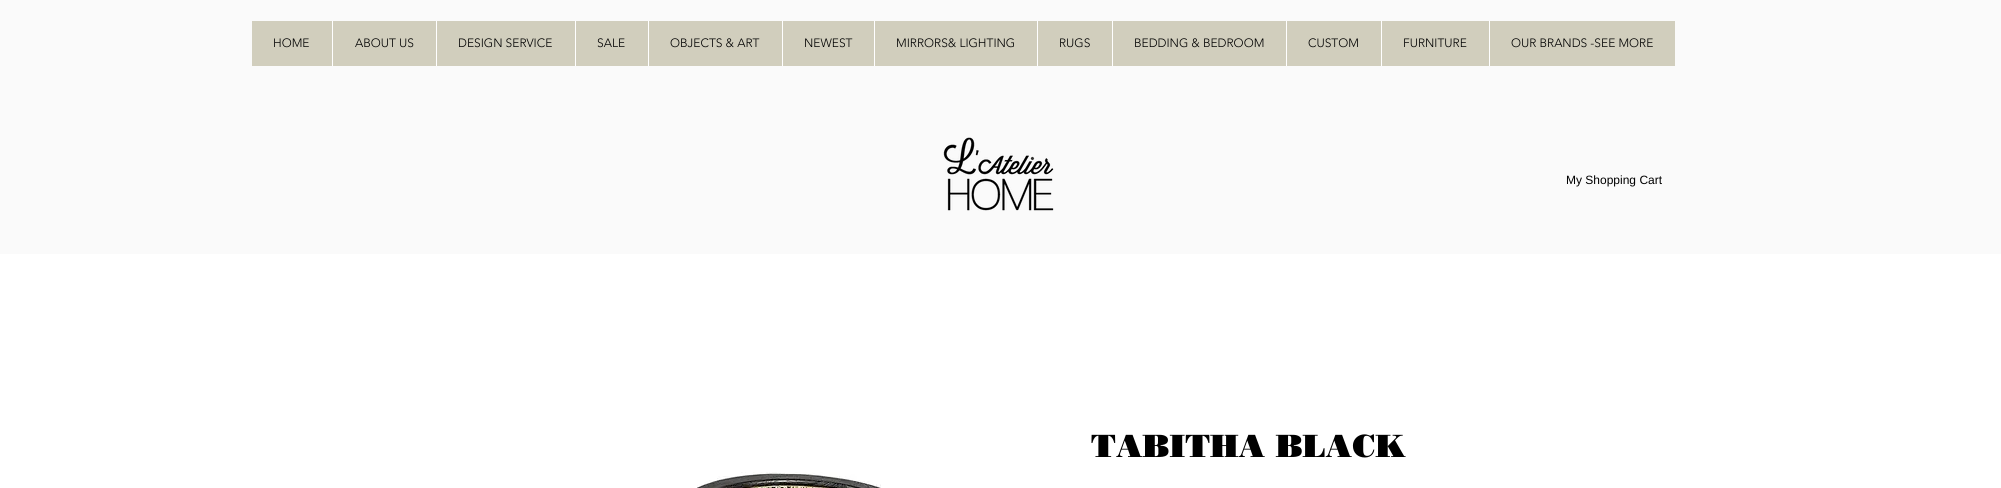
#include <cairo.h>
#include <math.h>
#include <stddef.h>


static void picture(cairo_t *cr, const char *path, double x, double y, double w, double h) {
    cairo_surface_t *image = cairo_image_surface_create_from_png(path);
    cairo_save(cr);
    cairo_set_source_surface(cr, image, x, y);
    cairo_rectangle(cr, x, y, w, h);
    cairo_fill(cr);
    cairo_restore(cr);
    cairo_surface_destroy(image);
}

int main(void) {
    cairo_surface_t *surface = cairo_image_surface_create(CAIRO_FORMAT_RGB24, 2001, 488);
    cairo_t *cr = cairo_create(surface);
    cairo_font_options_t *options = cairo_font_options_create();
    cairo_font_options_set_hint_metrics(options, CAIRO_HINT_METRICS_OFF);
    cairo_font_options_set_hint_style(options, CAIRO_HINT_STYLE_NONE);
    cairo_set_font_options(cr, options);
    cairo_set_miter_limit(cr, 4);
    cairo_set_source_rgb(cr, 1, 1, 1);
    cairo_paint(cr);
    cairo_set_source_rgb(cr, 0.98, 0.98, 0.98);
    cairo_rectangle(cr, 0, 0, 2001, 254);
    cairo_fill(cr);
    cairo_set_source_rgb(cr, 0.82, 0.808, 0.741);
    cairo_rectangle(cr, 252, 21, 1423, 45);
    cairo_fill(cr);
    cairo_select_font_face(cr, "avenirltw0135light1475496 Light", CAIRO_FONT_SLANT_NORMAL, CAIRO_FONT_WEIGHT_NORMAL);
    cairo_set_font_size(cr, 12);
    cairo_set_source_rgb(cr, 0, 0, 0);
    cairo_move_to(cr, 273, 47);
    cairo_show_text(cr, "HOME");
    cairo_set_source_rgb(cr, 1, 1, 1);
    cairo_rectangle(cr, 332, 21, 1, 45);
    cairo_fill(cr);
    cairo_set_source_rgb(cr, 0, 0, 0);
    cairo_move_to(cr, 355, 47);
    cairo_show_text(cr, "ABOUT US");
    cairo_set_source_rgb(cr, 1, 1, 1);
    cairo_rectangle(cr, 436, 21, 1, 45);
    cairo_fill(cr);
    cairo_set_source_rgb(cr, 0, 0, 0);
    cairo_move_to(cr, 458, 47);
    cairo_show_text(cr, "DESIGN SERVICE");
    cairo_set_source_rgb(cr, 1, 1, 1);
    cairo_rectangle(cr, 575, 21, 1, 45);
    cairo_fill(cr);
    cairo_set_source_rgb(cr, 0, 0, 0);
    cairo_move_to(cr, 597, 47);
    cairo_show_text(cr, "SALE");
    cairo_set_source_rgb(cr, 1, 1, 1);
    cairo_rectangle(cr, 648, 21, 1, 45);
    cairo_fill(cr);
    cairo_set_source_rgb(cr, 0, 0, 0);
    cairo_move_to(cr, 670, 47);
    cairo_show_text(cr, "OBJECTS & ART");
    cairo_set_source_rgb(cr, 1, 1, 1);
    cairo_rectangle(cr, 782, 21, 1, 45);
    cairo_fill(cr);
    cairo_set_source_rgb(cr, 0, 0, 0);
    cairo_move_to(cr, 804, 47);
    cairo_show_text(cr, "NEWEST");
    cairo_set_source_rgb(cr, 1, 1, 1);
    cairo_rectangle(cr, 874, 21, 1, 45);
    cairo_fill(cr);
    cairo_set_source_rgb(cr, 0, 0, 0);
    cairo_move_to(cr, 896, 47);
    cairo_show_text(cr, "MIRRORS& LIGHTING");
    cairo_set_source_rgb(cr, 1, 1, 1);
    cairo_rectangle(cr, 1037, 21, 1, 45);
    cairo_fill(cr);
    cairo_set_source_rgb(cr, 0, 0, 0);
    cairo_move_to(cr, 1059, 47);
    cairo_show_text(cr, "RUGS");
    cairo_set_source_rgb(cr, 1, 1, 1);
    cairo_rectangle(cr, 1112, 21, 1, 45);
    cairo_fill(cr);
    cairo_set_source_rgb(cr, 0, 0, 0);
    cairo_move_to(cr, 1134, 47);
    cairo_show_text(cr, "BEDDING & BEDROOM");
    cairo_set_source_rgb(cr, 1, 1, 1);
    cairo_rectangle(cr, 1286, 21, 1, 45);
    cairo_fill(cr);
    cairo_set_source_rgb(cr, 0, 0, 0);
    cairo_move_to(cr, 1308, 47);
    cairo_show_text(cr, "CUSTOM");
    cairo_set_source_rgb(cr, 1, 1, 1);
    cairo_rectangle(cr, 1381, 21, 1, 45);
    cairo_fill(cr);
    cairo_set_source_rgb(cr, 0, 0, 0);
    cairo_move_to(cr, 1403, 47);
    cairo_show_text(cr, "FURNITURE");
    cairo_set_source_rgb(cr, 1, 1, 1);
    cairo_rectangle(cr, 1489, 21, 1, 45);
    cairo_fill(cr);
    cairo_set_source_rgb(cr, 0, 0, 0);
    cairo_move_to(cr, 1511, 47);
    cairo_show_text(cr, "OUR BRANDS -SEE MORE");
    picture(cr, "img1.png", 943, 137, 111, 74);
    cairo_select_font_face(cr, "Liberation Sans", CAIRO_FONT_SLANT_NORMAL, CAIRO_FONT_WEIGHT_NORMAL);
    cairo_move_to(cr, 1566, 184);
    cairo_show_text(cr, "My Shopping Cart");
    cairo_select_font_face(cr, "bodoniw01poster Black", CAIRO_FONT_SLANT_NORMAL, CAIRO_FONT_WEIGHT_NORMAL);
    cairo_set_font_size(cr, 32);
    cairo_move_to(cr, 1091, 457);
    cairo_show_text(cr, "TABITHA BLACK");
    picture(cr, "img2.png", 697, 472, 184, 16);
    cairo_surface_write_to_png(surface, "page.png");
    cairo_font_options_destroy(options);
    cairo_destroy(cr);
    cairo_surface_destroy(surface);
    return 0;
}
